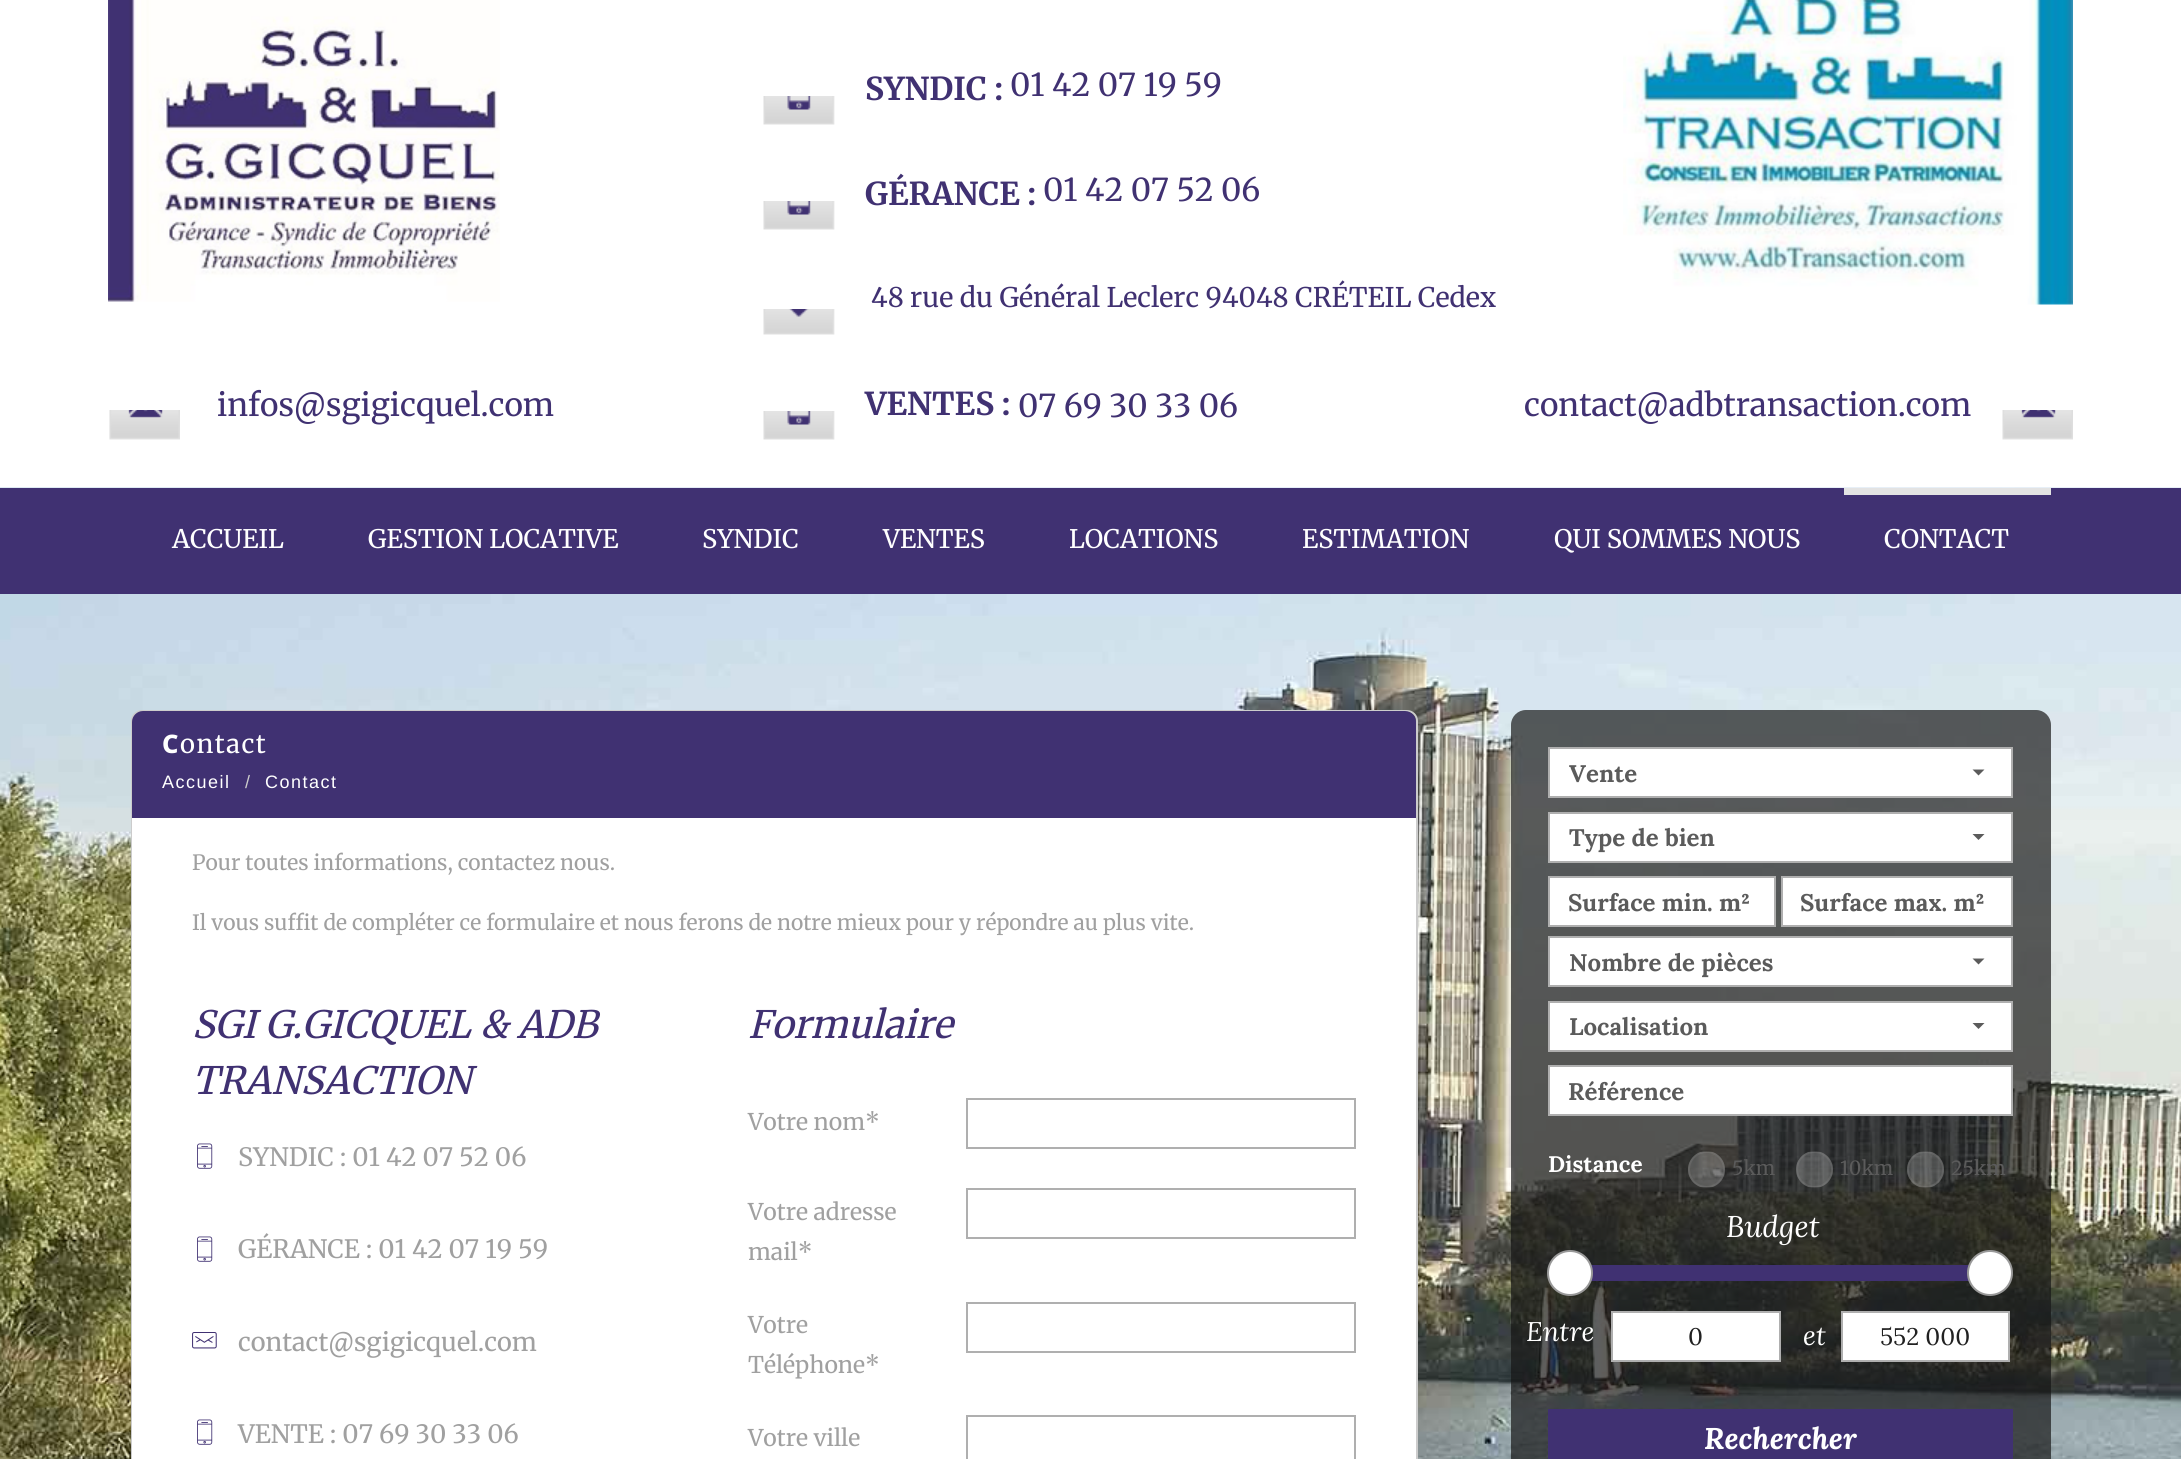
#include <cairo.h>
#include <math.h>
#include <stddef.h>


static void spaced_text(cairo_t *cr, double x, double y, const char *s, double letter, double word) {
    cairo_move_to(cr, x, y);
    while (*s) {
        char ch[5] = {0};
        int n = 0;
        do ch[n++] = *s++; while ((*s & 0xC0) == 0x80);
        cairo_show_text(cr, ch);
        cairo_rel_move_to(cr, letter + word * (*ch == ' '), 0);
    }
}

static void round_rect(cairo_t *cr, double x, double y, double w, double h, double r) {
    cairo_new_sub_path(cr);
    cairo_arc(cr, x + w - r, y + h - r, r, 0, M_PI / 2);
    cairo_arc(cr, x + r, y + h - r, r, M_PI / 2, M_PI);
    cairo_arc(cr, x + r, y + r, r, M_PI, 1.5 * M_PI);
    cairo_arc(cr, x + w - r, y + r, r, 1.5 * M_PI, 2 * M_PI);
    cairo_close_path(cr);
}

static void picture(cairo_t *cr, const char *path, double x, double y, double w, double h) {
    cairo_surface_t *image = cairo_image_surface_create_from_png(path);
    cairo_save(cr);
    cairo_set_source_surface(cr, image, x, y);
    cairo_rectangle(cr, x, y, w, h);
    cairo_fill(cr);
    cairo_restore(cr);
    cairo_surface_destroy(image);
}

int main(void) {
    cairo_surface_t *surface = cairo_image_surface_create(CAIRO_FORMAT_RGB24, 2181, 1459);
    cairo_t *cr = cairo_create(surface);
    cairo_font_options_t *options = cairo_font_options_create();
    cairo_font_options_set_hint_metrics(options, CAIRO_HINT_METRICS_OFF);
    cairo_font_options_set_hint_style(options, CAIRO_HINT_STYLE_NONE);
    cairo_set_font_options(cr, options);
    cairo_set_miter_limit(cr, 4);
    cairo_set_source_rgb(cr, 1, 1, 1);
    cairo_paint(cr);
    picture(cr, "img1.png", 108, 0, 392, 302);
    cairo_select_font_face(cr, "Merriweather Light", CAIRO_FONT_SLANT_NORMAL, CAIRO_FONT_WEIGHT_NORMAL);
    cairo_set_font_size(cr, 31.5);
    cairo_set_source_rgb(cr, 0.251, 0.192, 0.447);
    cairo_move_to(cr, 865, 100);
    cairo_show_text(cr, "SYNDIC :");
    cairo_select_font_face(cr, "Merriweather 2 Light", CAIRO_FONT_SLANT_NORMAL, CAIRO_FONT_WEIGHT_NORMAL);
    cairo_move_to(cr, 1010, 96);
    cairo_show_text(cr, "01 42 07 19 59");
    picture(cr, "img2.png", 763, 96, 72, 29);
    cairo_select_font_face(cr, "Merriweather Light", CAIRO_FONT_SLANT_NORMAL, CAIRO_FONT_WEIGHT_NORMAL);
    cairo_move_to(cr, 865, 205);
    cairo_show_text(cr, "GÉRANCE :");
    cairo_select_font_face(cr, "Merriweather 2 Light", CAIRO_FONT_SLANT_NORMAL, CAIRO_FONT_WEIGHT_NORMAL);
    cairo_move_to(cr, 1043, 201);
    cairo_show_text(cr, "01 42 07 52 06");
    picture(cr, "img2.png", 763, 201, 72, 29);
    cairo_set_font_size(cr, 27);
    cairo_move_to(cr, 871, 307);
    cairo_show_text(cr, "48 rue du Général Leclerc 94048 CRÉTEIL Cedex");
    picture(cr, "img3.png", 763, 309, 72, 26);
    picture(cr, "img4.png", 1623, 0, 450, 305);
    picture(cr, "img5.png", 109, 410, 71, 30);
    cairo_set_font_size(cr, 31.5);
    cairo_move_to(cr, 217, 416);
    cairo_show_text(cr, "infos@sgigicquel.com");
    cairo_select_font_face(cr, "Merriweather Light", CAIRO_FONT_SLANT_NORMAL, CAIRO_FONT_WEIGHT_NORMAL);
    cairo_move_to(cr, 865, 415);
    cairo_show_text(cr, "VENTES :");
    cairo_select_font_face(cr, "Merriweather 2 Light", CAIRO_FONT_SLANT_NORMAL, CAIRO_FONT_WEIGHT_NORMAL);
    cairo_move_to(cr, 1018, 417);
    cairo_show_text(cr, "07 69 30 33 06");
    picture(cr, "img2.png", 763, 411, 72, 29);
    cairo_move_to(cr, 1524, 416);
    cairo_show_text(cr, "contact@adbtransaction.com");
    picture(cr, "img6.png", 2002, 410, 71, 30);
    picture(cr, "img7.png", 0, 487, 2181, 972);
    cairo_rectangle(cr, 0, 488, 2181, 106);
    cairo_fill(cr);
    cairo_set_font_size(cr, 25.5);
    cairo_set_source_rgb(cr, 1, 1, 1);
    cairo_move_to(cr, 172, 548);
    cairo_show_text(cr, "ACCUEIL");
    cairo_move_to(cr, 368, 548);
    cairo_show_text(cr, "GESTION LOCATIVE");
    cairo_move_to(cr, 702, 548);
    cairo_show_text(cr, "SYNDIC");
    cairo_move_to(cr, 883, 548);
    cairo_show_text(cr, "VENTES");
    cairo_move_to(cr, 1069, 548);
    cairo_show_text(cr, "LOCATIONS");
    cairo_move_to(cr, 1302, 548);
    cairo_show_text(cr, "ESTIMATION");
    cairo_move_to(cr, 1554, 548);
    cairo_show_text(cr, "QUI SOMMES NOUS");
    cairo_set_source_rgb(cr, 0.89, 0.89, 0.89);
    cairo_rectangle(cr, 1844, 488, 207, 7);
    cairo_fill(cr);
    cairo_set_source_rgb(cr, 1, 1, 1);
    cairo_move_to(cr, 1884, 548);
    cairo_show_text(cr, "CONTACT");
    round_rect(cr, 132, 711, 1285, 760, 10);
    cairo_set_source_rgb(cr, 0.8, 0.8, 0.8);
    cairo_stroke(cr);
    cairo_set_source_rgb(cr, 0.251, 0.192, 0.447);
    cairo_new_path(cr);
    cairo_move_to(cr, 143, 711);
    cairo_line_to(cr, 1405, 711);
    cairo_curve_to(cr, 1411, 711, 1416, 716, 1416, 722);
    cairo_line_to(cr, 1416, 818);
    cairo_line_to(cr, 132, 818);
    cairo_line_to(cr, 132, 722);
    cairo_curve_to(cr, 132, 716, 137, 711, 143, 711);
    cairo_close_path(cr);
    cairo_fill(cr);
    cairo_select_font_face(cr, "Noto Sans ExtraBold", CAIRO_FONT_SLANT_NORMAL, CAIRO_FONT_WEIGHT_NORMAL);
    cairo_set_source_rgb(cr, 1, 1, 1);
    spaced_text(cr, 162, 753, "C", 1.5, 0);
    cairo_select_font_face(cr, "Merriweather 2 Light", CAIRO_FONT_SLANT_NORMAL, CAIRO_FONT_WEIGHT_NORMAL);
    spaced_text(cr, 180, 753, "ontact", 1.5, 0);
    cairo_select_font_face(cr, "Liberation Sans", CAIRO_FONT_SLANT_NORMAL, CAIRO_FONT_WEIGHT_NORMAL);
    cairo_set_font_size(cr, 18);
    spaced_text(cr, 162, 788, "Accueil", 1.5, 0);
    cairo_set_source_rgb(cr, 0.8, 0.8, 0.8);
    spaced_text(cr, 245, 788, "/", 1.5, 0);
    cairo_set_source_rgb(cr, 1, 1, 1);
    spaced_text(cr, 265, 788, "Contact", 1.5, 0);
    cairo_rectangle(cr, 132, 818, 1284, 641);
    cairo_fill(cr);
    cairo_select_font_face(cr, "Merriweather 2 Light", CAIRO_FONT_SLANT_NORMAL, CAIRO_FONT_WEIGHT_NORMAL);
    cairo_set_font_size(cr, 21);
    cairo_set_source_rgb(cr, 0.627, 0.627, 0.627);
    cairo_move_to(cr, 192, 870);
    cairo_show_text(cr, "Pour toutes informations, contactez nous.");
    cairo_move_to(cr, 192, 930);
    cairo_show_text(cr, "Il vous suffit de compléter ce formulaire et nous ferons de notre mieux pour y répondre au plus vite.");
    cairo_select_font_face(cr, "Merriweather Light", CAIRO_FONT_SLANT_ITALIC, CAIRO_FONT_WEIGHT_NORMAL);
    cairo_set_font_size(cr, 37.75);
    cairo_set_source_rgb(cr, 0.251, 0.192, 0.447);
    cairo_move_to(cr, 192, 1038);
    cairo_show_text(cr, "SGI G.GICQUEL & ADB");
    cairo_move_to(cr, 192, 1094);
    cairo_show_text(cr, "TRANSACTION");
    picture(cr, "img8.png", 197, 1143, 16, 26);
    cairo_select_font_face(cr, "Merriweather 2 Light", CAIRO_FONT_SLANT_NORMAL, CAIRO_FONT_WEIGHT_NORMAL);
    cairo_set_font_size(cr, 25.25);
    cairo_set_source_rgb(cr, 0.627, 0.627, 0.627);
    cairo_move_to(cr, 238, 1166);
    cairo_show_text(cr, "SYNDIC : 01 42 07 52 06");
    picture(cr, "img8.png", 197, 1236, 16, 26);
    cairo_move_to(cr, 238, 1258);
    cairo_show_text(cr, "GÉRANCE : 01 42 07 19 59");
    picture(cr, "img9.png", 192, 1332, 25, 17);
    cairo_move_to(cr, 238, 1351);
    cairo_show_text(cr, "contact@sgigicquel.com");
    picture(cr, "img8.png", 197, 1419, 16, 26);
    cairo_move_to(cr, 238, 1443);
    cairo_show_text(cr, "VENTE : 07 69 30 33 06");
    cairo_select_font_face(cr, "Merriweather Light", CAIRO_FONT_SLANT_ITALIC, CAIRO_FONT_WEIGHT_NORMAL);
    cairo_set_font_size(cr, 37.75);
    cairo_set_source_rgb(cr, 0.251, 0.192, 0.447);
    cairo_move_to(cr, 748, 1038);
    cairo_show_text(cr, "Formulaire");
    cairo_select_font_face(cr, "Merriweather 2 Light", CAIRO_FONT_SLANT_NORMAL, CAIRO_FONT_WEIGHT_NORMAL);
    cairo_set_font_size(cr, 23);
    cairo_set_source_rgb(cr, 0.627, 0.627, 0.627);
    cairo_move_to(cr, 748, 1130);
    cairo_show_text(cr, "Votre nom*");
    cairo_rectangle(cr, 967, 1099, 388, 49);
    cairo_set_source_rgb(cr, 0.686, 0.686, 0.686);
    cairo_stroke(cr);
    cairo_set_source_rgb(cr, 0.627, 0.627, 0.627);
    cairo_move_to(cr, 748, 1220);
    cairo_show_text(cr, "Votre adresse");
    cairo_move_to(cr, 748, 1260);
    cairo_show_text(cr, "mail*");
    cairo_rectangle(cr, 967, 1189, 388, 49);
    cairo_set_source_rgb(cr, 0.686, 0.686, 0.686);
    cairo_stroke(cr);
    cairo_set_source_rgb(cr, 0.627, 0.627, 0.627);
    cairo_move_to(cr, 748, 1333);
    cairo_show_text(cr, "Votre");
    cairo_move_to(cr, 748, 1373);
    cairo_show_text(cr, "Téléphone*");
    cairo_rectangle(cr, 967, 1303, 388, 49);
    cairo_set_source_rgb(cr, 0.686, 0.686, 0.686);
    cairo_stroke(cr);
    cairo_set_source_rgb(cr, 0.627, 0.627, 0.627);
    cairo_move_to(cr, 748, 1446);
    cairo_show_text(cr, "Votre ville");
    cairo_rectangle(cr, 967, 1416, 388, 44);
    cairo_set_source_rgb(cr, 0.686, 0.686, 0.686);
    cairo_stroke(cr);
    cairo_set_source_rgba(cr, 0.082, 0.082, 0.082, 0.68);
    round_rect(cr, 1511, 710, 540, 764, 15);
    cairo_fill(cr);
    cairo_set_source_rgb(cr, 1, 1, 1);
    cairo_rectangle(cr, 1549, 748, 463, 49);
    cairo_fill_preserve(cr);
    cairo_set_source_rgb(cr, 0.686, 0.686, 0.686);
    cairo_stroke(cr);
    cairo_select_font_face(cr, "Lora", CAIRO_FONT_SLANT_NORMAL, CAIRO_FONT_WEIGHT_BOLD);
    cairo_set_font_size(cr, 24);
    cairo_set_source_rgb(cr, 0.357, 0.357, 0.357);
    cairo_move_to(cr, 1569, 782);
    cairo_show_text(cr, "Vente");
    cairo_new_path(cr);
    cairo_move_to(cr, 1972.5, 769.5);
    cairo_line_to(cr, 1984.5, 769.5);
    cairo_line_to(cr, 1978.5, 775.5);
    cairo_close_path(cr);
    cairo_fill(cr);
    cairo_set_source_rgb(cr, 1, 1, 1);
    cairo_rectangle(cr, 1549, 813, 463, 49);
    cairo_fill_preserve(cr);
    cairo_set_source_rgb(cr, 0.686, 0.686, 0.686);
    cairo_stroke(cr);
    cairo_set_source_rgb(cr, 0.357, 0.357, 0.357);
    cairo_move_to(cr, 1569, 846);
    cairo_show_text(cr, "Type de bien");
    cairo_new_path(cr);
    cairo_move_to(cr, 1972.5, 834);
    cairo_line_to(cr, 1984.5, 834);
    cairo_line_to(cr, 1978.5, 840);
    cairo_close_path(cr);
    cairo_fill(cr);
    cairo_set_source_rgb(cr, 1, 1, 1);
    cairo_rectangle(cr, 1549, 877, 226, 49);
    cairo_fill_preserve(cr);
    cairo_set_source_rgb(cr, 0.686, 0.686, 0.686);
    cairo_stroke(cr);
    cairo_set_source_rgb(cr, 0.357, 0.357, 0.357);
    cairo_move_to(cr, 1568, 911);
    cairo_show_text(cr, "Surface min. m²");
    cairo_set_source_rgb(cr, 1, 1, 1);
    cairo_rectangle(cr, 1782, 877, 230, 49);
    cairo_fill_preserve(cr);
    cairo_set_source_rgb(cr, 0.686, 0.686, 0.686);
    cairo_stroke(cr);
    cairo_set_source_rgb(cr, 0.357, 0.357, 0.357);
    cairo_move_to(cr, 1800, 911);
    cairo_show_text(cr, "Surface max. m²");
    cairo_set_source_rgb(cr, 1, 1, 1);
    cairo_rectangle(cr, 1549, 937, 463, 49);
    cairo_fill_preserve(cr);
    cairo_set_source_rgb(cr, 0.686, 0.686, 0.686);
    cairo_stroke(cr);
    cairo_set_source_rgb(cr, 0.357, 0.357, 0.357);
    cairo_move_to(cr, 1569, 971);
    cairo_show_text(cr, "Nombre de pièces");
    cairo_new_path(cr);
    cairo_move_to(cr, 1972.5, 958.5);
    cairo_line_to(cr, 1984.5, 958.5);
    cairo_line_to(cr, 1978.5, 964.5);
    cairo_close_path(cr);
    cairo_fill(cr);
    cairo_set_source_rgb(cr, 1, 1, 1);
    cairo_rectangle(cr, 1549, 1002, 463, 49);
    cairo_fill_preserve(cr);
    cairo_set_source_rgb(cr, 0.686, 0.686, 0.686);
    cairo_stroke(cr);
    cairo_set_source_rgb(cr, 0.357, 0.357, 0.357);
    cairo_move_to(cr, 1569, 1035);
    cairo_show_text(cr, "Localisation");
    cairo_new_path(cr);
    cairo_move_to(cr, 1972.5, 1023);
    cairo_line_to(cr, 1984.5, 1023);
    cairo_line_to(cr, 1978.5, 1029);
    cairo_close_path(cr);
    cairo_fill(cr);
    cairo_set_source_rgb(cr, 1, 1, 1);
    cairo_rectangle(cr, 1549, 1066, 463, 49);
    cairo_fill_preserve(cr);
    cairo_set_source_rgb(cr, 0.686, 0.686, 0.686);
    cairo_stroke(cr);
    cairo_set_source_rgb(cr, 0.357, 0.357, 0.357);
    cairo_move_to(cr, 1568, 1100);
    cairo_show_text(cr, "Référence");
    cairo_set_font_size(cr, 22.5);
    cairo_set_source_rgb(cr, 1, 1, 1);
    cairo_move_to(cr, 1548, 1172);
    cairo_show_text(cr, "Distance");
    cairo_save(cr);
    round_rect(cr, 1688, 1151, 37, 37, 18.5);
    cairo_clip(cr);
    cairo_set_source_rgba(cr, 1, 1, 1, 0.2);
    cairo_rectangle(cr, 1688, 1152, 37, 35);
    cairo_fill(cr);
    cairo_restore(cr);
    cairo_arc(cr, 1706.5, 1169.5, 17.5, 0, 2 * M_PI);
    cairo_set_source_rgba(cr, 0.6, 0.6, 0.6, 0.2);
    cairo_stroke(cr);
    cairo_select_font_face(cr, "Merriweather 2 Light", CAIRO_FONT_SLANT_NORMAL, CAIRO_FONT_WEIGHT_NORMAL);
    cairo_set_font_size(cr, 19.5);
    cairo_set_source_rgb(cr, 0.357, 0.357, 0.357);
    cairo_move_to(cr, 1732, 1175);
    cairo_show_text(cr, "5km");
    cairo_save(cr);
    round_rect(cr, 1796, 1151, 37, 37, 18.5);
    cairo_clip(cr);
    cairo_set_source_rgba(cr, 1, 1, 1, 0.2);
    cairo_rectangle(cr, 1796, 1152, 37, 35);
    cairo_fill(cr);
    cairo_restore(cr);
    cairo_arc(cr, 1814.5, 1169.5, 17.5, 0, 2 * M_PI);
    cairo_set_source_rgba(cr, 0.6, 0.6, 0.6, 0.2);
    cairo_stroke(cr);
    cairo_set_source_rgb(cr, 0.357, 0.357, 0.357);
    cairo_move_to(cr, 1840, 1175);
    cairo_show_text(cr, "10km");
    cairo_save(cr);
    round_rect(cr, 1907, 1151, 37, 37, 18.5);
    cairo_clip(cr);
    cairo_set_source_rgba(cr, 1, 1, 1, 0.2);
    cairo_rectangle(cr, 1907, 1152, 37, 35);
    cairo_fill(cr);
    cairo_restore(cr);
    cairo_arc(cr, 1925.5, 1169.5, 17.5, 0, 2 * M_PI);
    cairo_set_source_rgba(cr, 0.6, 0.6, 0.6, 0.2);
    cairo_stroke(cr);
    cairo_set_source_rgb(cr, 0.357, 0.357, 0.357);
    cairo_move_to(cr, 1951, 1175);
    cairo_show_text(cr, "25km");
    cairo_select_font_face(cr, "Lora", CAIRO_FONT_SLANT_ITALIC, CAIRO_FONT_WEIGHT_NORMAL);
    cairo_set_font_size(cr, 30);
    cairo_set_source_rgb(cr, 1, 1, 1);
    cairo_move_to(cr, 1726, 1237);
    cairo_show_text(cr, "Budget");
    cairo_set_source_rgb(cr, 0.251, 0.192, 0.447);
    cairo_rectangle(cr, 1591, 1265, 378, 16);
    cairo_fill(cr);
    cairo_set_source_rgb(cr, 1, 1, 1);
    cairo_arc(cr, 1570, 1273, 22, 0, 2 * M_PI);
    cairo_fill_preserve(cr);
    cairo_set_source_rgb(cr, 0.6, 0.6, 0.6);
    cairo_stroke(cr);
    cairo_set_source_rgb(cr, 1, 1, 1);
    cairo_arc(cr, 1990, 1273, 22, 0, 2 * M_PI);
    cairo_fill_preserve(cr);
    cairo_set_source_rgb(cr, 0.6, 0.6, 0.6);
    cairo_stroke(cr);
    cairo_set_font_size(cr, 27);
    cairo_set_source_rgb(cr, 1, 1, 1);
    cairo_move_to(cr, 1526, 1341);
    cairo_show_text(cr, "Entre");
    cairo_rectangle(cr, 1612, 1312, 168, 49);
    cairo_fill_preserve(cr);
    cairo_set_source_rgb(cr, 0.686, 0.686, 0.686);
    cairo_stroke(cr);
    cairo_select_font_face(cr, "Lora", CAIRO_FONT_SLANT_NORMAL, CAIRO_FONT_WEIGHT_NORMAL);
    cairo_set_font_size(cr, 24);
    cairo_set_source_rgb(cr, 0.129, 0.129, 0.129);
    cairo_move_to(cr, 1688, 1345);
    cairo_show_text(cr, "0");
    cairo_select_font_face(cr, "Lora", CAIRO_FONT_SLANT_ITALIC, CAIRO_FONT_WEIGHT_NORMAL);
    cairo_set_font_size(cr, 27);
    cairo_set_source_rgb(cr, 1, 1, 1);
    cairo_move_to(cr, 1803, 1345);
    cairo_show_text(cr, "et");
    cairo_rectangle(cr, 1842, 1312, 167, 49);
    cairo_fill_preserve(cr);
    cairo_set_source_rgb(cr, 0.686, 0.686, 0.686);
    cairo_stroke(cr);
    cairo_select_font_face(cr, "Lora", CAIRO_FONT_SLANT_NORMAL, CAIRO_FONT_WEIGHT_NORMAL);
    cairo_set_font_size(cr, 24);
    cairo_set_source_rgb(cr, 0.129, 0.129, 0.129);
    cairo_move_to(cr, 1880, 1345);
    cairo_show_text(cr, "552 000");
    cairo_set_source_rgb(cr, 0.251, 0.192, 0.447);
    cairo_rectangle(cr, 1549, 1410, 463, 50);
    cairo_fill_preserve(cr);
    cairo_stroke(cr);
    cairo_select_font_face(cr, "Lora", CAIRO_FONT_SLANT_ITALIC, CAIRO_FONT_WEIGHT_BOLD);
    cairo_set_font_size(cr, 30);
    cairo_set_source_rgb(cr, 1, 1, 1);
    cairo_move_to(cr, 1704, 1449);
    cairo_show_text(cr, "Rechercher");
    cairo_surface_write_to_png(surface, "page.png");
    cairo_font_options_destroy(options);
    cairo_destroy(cr);
    cairo_surface_destroy(surface);
    return 0;
}
